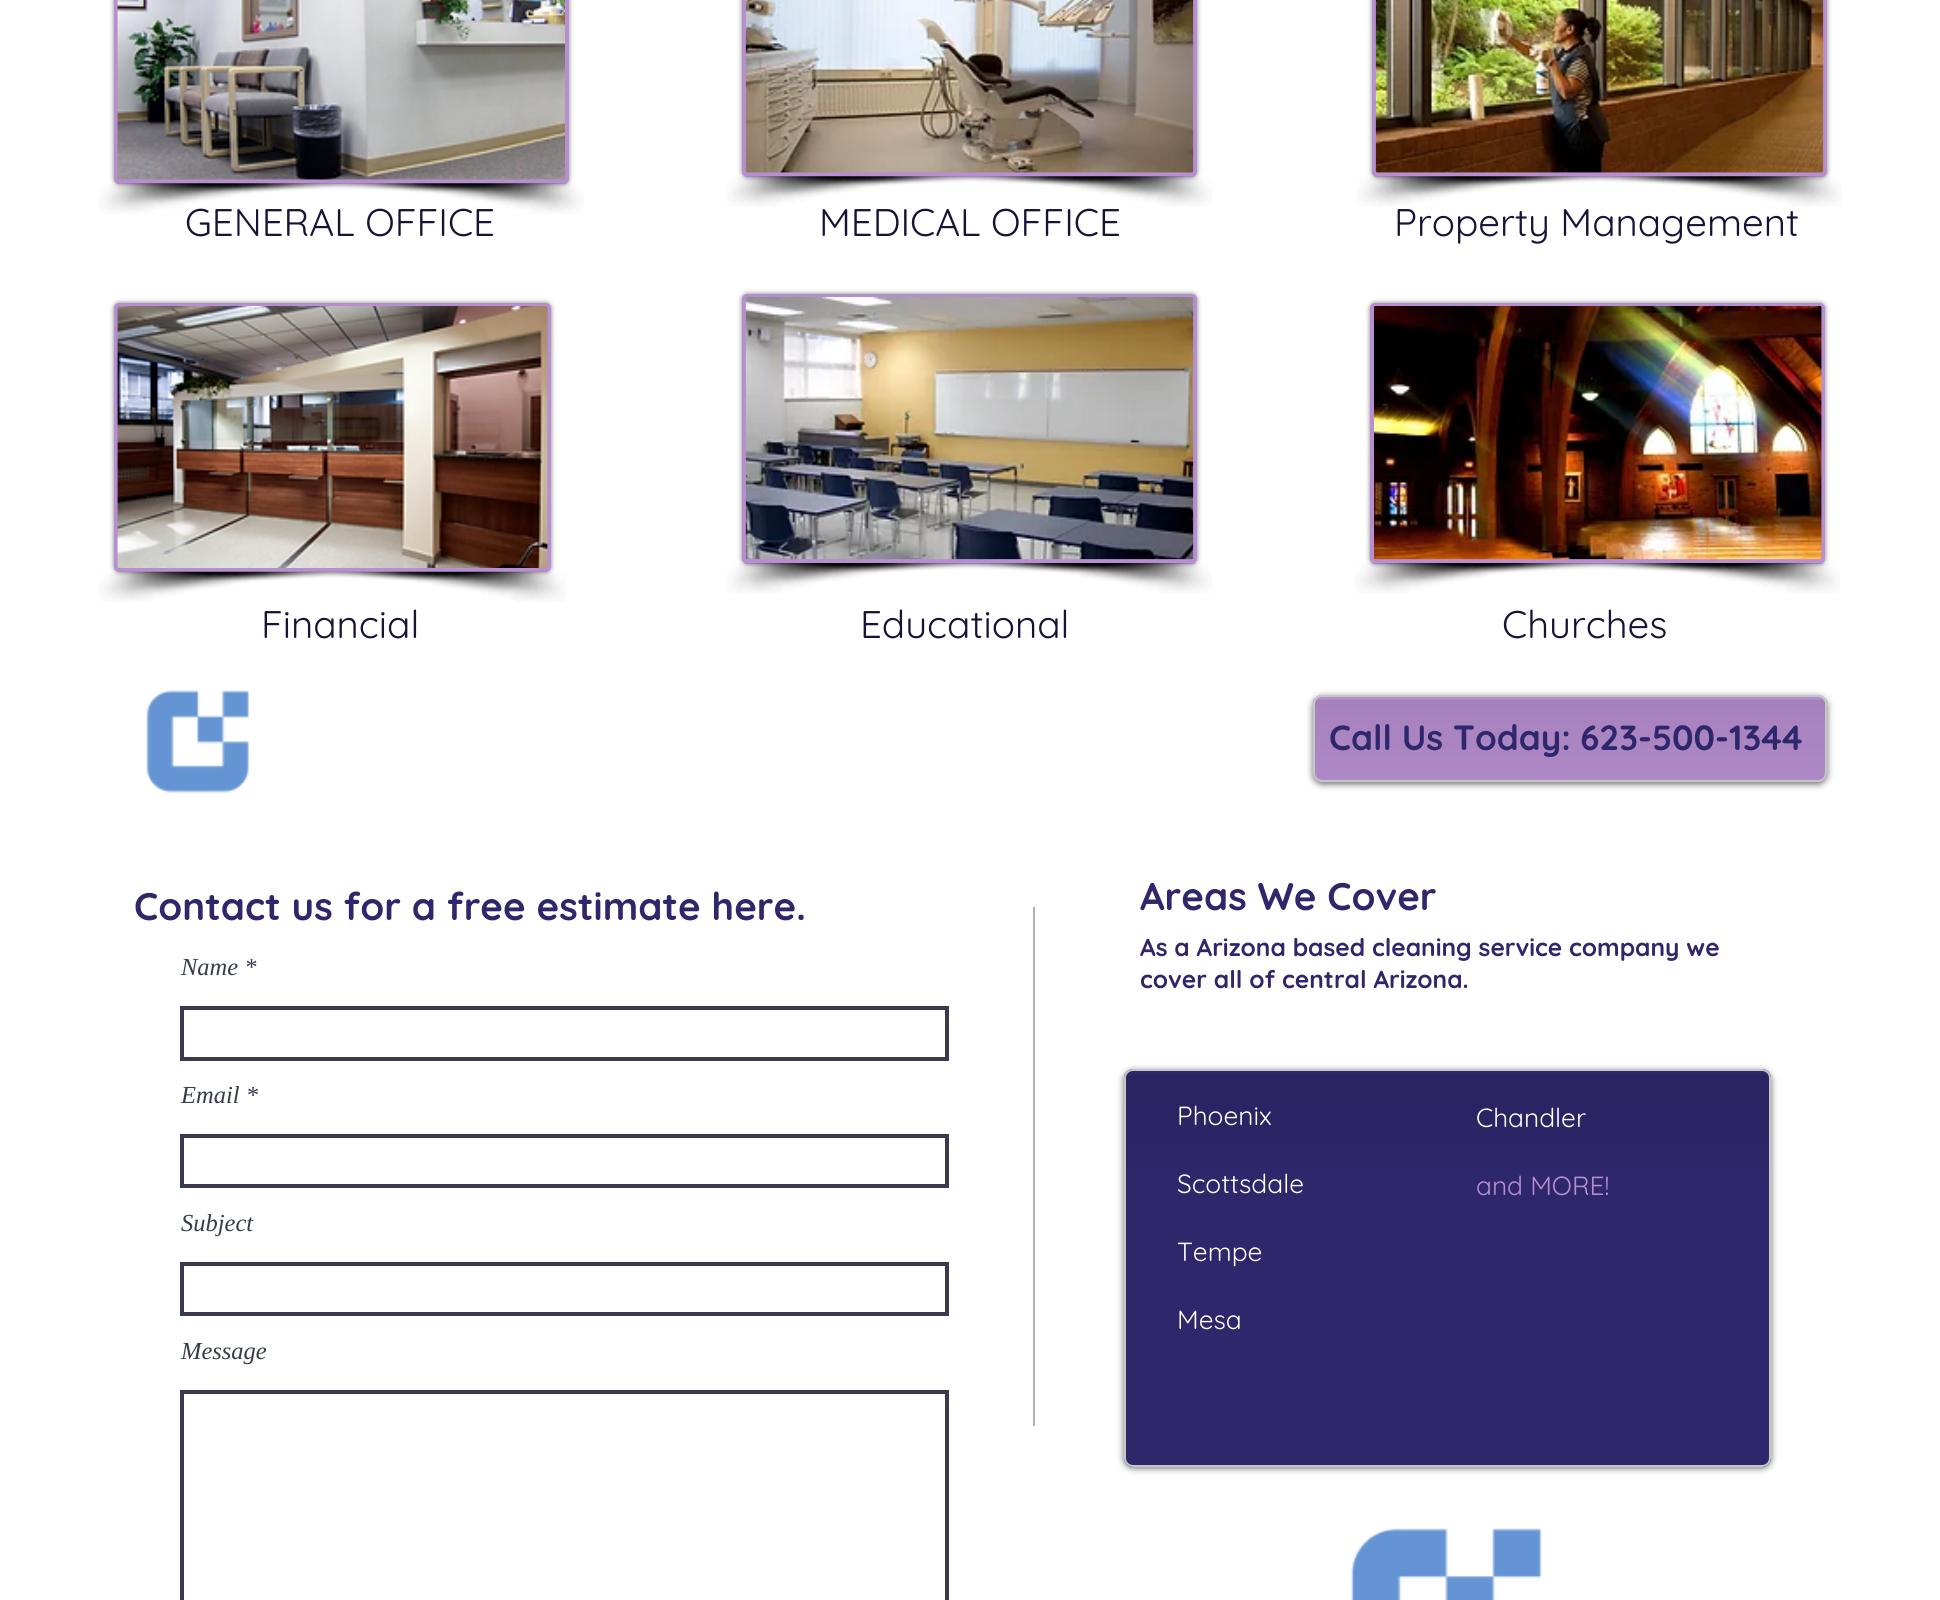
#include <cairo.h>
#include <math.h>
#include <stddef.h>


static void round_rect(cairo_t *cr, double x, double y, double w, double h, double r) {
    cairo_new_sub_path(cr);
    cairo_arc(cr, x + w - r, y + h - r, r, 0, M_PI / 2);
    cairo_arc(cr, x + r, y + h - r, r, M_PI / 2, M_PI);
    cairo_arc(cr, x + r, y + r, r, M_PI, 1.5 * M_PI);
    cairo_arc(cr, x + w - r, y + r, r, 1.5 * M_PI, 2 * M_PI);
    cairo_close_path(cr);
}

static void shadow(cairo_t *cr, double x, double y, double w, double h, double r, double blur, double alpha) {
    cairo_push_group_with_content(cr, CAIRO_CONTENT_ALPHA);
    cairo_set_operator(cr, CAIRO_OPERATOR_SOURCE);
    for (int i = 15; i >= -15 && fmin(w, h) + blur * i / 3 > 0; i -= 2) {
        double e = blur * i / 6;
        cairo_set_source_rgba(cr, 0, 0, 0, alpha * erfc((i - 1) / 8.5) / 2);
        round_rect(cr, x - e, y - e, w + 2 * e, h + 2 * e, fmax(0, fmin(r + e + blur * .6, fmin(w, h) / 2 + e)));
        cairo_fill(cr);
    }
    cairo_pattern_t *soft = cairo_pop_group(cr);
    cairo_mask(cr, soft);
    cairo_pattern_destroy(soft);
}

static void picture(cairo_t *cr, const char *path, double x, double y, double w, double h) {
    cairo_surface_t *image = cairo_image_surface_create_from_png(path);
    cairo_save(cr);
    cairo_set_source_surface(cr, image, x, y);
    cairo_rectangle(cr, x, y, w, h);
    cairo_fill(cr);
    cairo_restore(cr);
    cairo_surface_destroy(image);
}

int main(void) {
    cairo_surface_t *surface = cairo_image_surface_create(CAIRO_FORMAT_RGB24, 1940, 1600);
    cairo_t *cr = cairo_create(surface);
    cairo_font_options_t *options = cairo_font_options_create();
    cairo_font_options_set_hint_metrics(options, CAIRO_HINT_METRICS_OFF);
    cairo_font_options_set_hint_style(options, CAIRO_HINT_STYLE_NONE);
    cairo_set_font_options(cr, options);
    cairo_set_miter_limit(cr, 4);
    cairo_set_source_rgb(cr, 1, 1, 1);
    cairo_paint(cr);
    cairo_set_source_rgb(cr, 0, 0, 0);
    shadow(cr, 114, -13, 455, 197, 5, 2.5, 0.5);
    cairo_set_source_rgb(cr, 0.718, 0.561, 0.816);
    round_rect(cr, 116, -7, 451, 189, 3);
    cairo_fill_preserve(cr);
    cairo_set_line_width(cr, 4);
    cairo_stroke(cr);
    picture(cr, "img1.png", 117, 0, 448, 180);
    picture(cr, "img2.png", 99, 183, 260, 31);
    picture(cr, "img3.png", 324, 183, 260, 31);
    cairo_set_source_rgb(cr, 0, 0, 0);
    shadow(cr, 742, -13, 455, 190, 5, 2.5, 0.5);
    cairo_set_source_rgb(cr, 0.718, 0.561, 0.816);
    round_rect(cr, 744, -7, 451, 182, 3);
    cairo_fill_preserve(cr);
    cairo_stroke(cr);
    picture(cr, "img4.png", 745, 0, 449, 173);
    picture(cr, "img5.png", 727, 176, 260, 31);
    picture(cr, "img6.png", 952, 176, 260, 31);
    cairo_set_source_rgb(cr, 0, 0, 0);
    shadow(cr, 1372, -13, 455, 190, 5, 2.5, 0.5);
    cairo_set_source_rgb(cr, 0.718, 0.561, 0.816);
    round_rect(cr, 1374, -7, 451, 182, 3);
    cairo_fill_preserve(cr);
    cairo_stroke(cr);
    picture(cr, "img7.png", 1375, 0, 449, 173);
    picture(cr, "img8.png", 1357, 176, 260, 31);
    picture(cr, "img9.png", 1582, 176, 260, 31);
    cairo_select_font_face(cr, "Quicksand", CAIRO_FONT_SLANT_NORMAL, CAIRO_FONT_WEIGHT_NORMAL);
    cairo_set_font_size(cr, 38.5);
    cairo_set_source_rgb(cr, 0.09, 0.078, 0.212);
    cairo_move_to(cr, 185, 236);
    cairo_show_text(cr, "GENERAL OFFICE");
    cairo_move_to(cr, 819, 236);
    cairo_show_text(cr, "MEDICAL OFFICE");
    cairo_move_to(cr, 1394, 236);
    cairo_show_text(cr, "Property Management");
    cairo_set_source_rgb(cr, 0, 0, 0);
    shadow(cr, 114, 303, 437, 269, 5, 2.5, 0.5);
    round_rect(cr, 116, 305, 433, 265, 3);
    cairo_set_source_rgb(cr, 0.718, 0.561, 0.816);
    cairo_stroke(cr);
    picture(cr, "img10.png", 117, 306, 431, 262);
    picture(cr, "img11.png", 99, 571, 268, 31);
    picture(cr, "img12.png", 307, 571, 259, 31);
    cairo_set_source_rgb(cr, 0, 0, 0);
    shadow(cr, 742, 294, 455, 270, 5, 2.5, 0.5);
    cairo_set_source_rgb(cr, 0.718, 0.561, 0.816);
    round_rect(cr, 744, 296, 451, 266, 3);
    cairo_fill_preserve(cr);
    cairo_stroke(cr);
    picture(cr, "img13.png", 745, 297, 449, 263);
    picture(cr, "img14.png", 727, 563, 268, 31);
    picture(cr, "img15.png", 948, 563, 264, 31);
    cairo_set_source_rgb(cr, 0, 0, 0);
    shadow(cr, 1370, 303, 455, 261, 5, 2.5, 0.5);
    cairo_set_source_rgb(cr, 0.718, 0.561, 0.816);
    round_rect(cr, 1372, 305, 451, 257, 3);
    cairo_fill_preserve(cr);
    cairo_stroke(cr);
    picture(cr, "img16.png", 1374, 306, 448, 254);
    picture(cr, "img17.png", 1355, 563, 269, 31);
    picture(cr, "img18.png", 1576, 563, 264, 31);
    cairo_set_source_rgb(cr, 0.09, 0.078, 0.212);
    cairo_move_to(cr, 261, 638);
    cairo_show_text(cr, "Financial");
    cairo_move_to(cr, 860, 638);
    cairo_show_text(cr, "Educational");
    cairo_move_to(cr, 1502, 638);
    cairo_show_text(cr, "Churches");
    picture(cr, "img19.png", 146, 690, 103, 103);
    cairo_set_source_rgb(cr, 0, 0, 0);
    shadow(cr, 1313, 697, 514, 87, 9, 3.5, 0.6);
    cairo_set_source_rgb(cr, 0.718, 0.561, 0.816);
    round_rect(cr, 1313, 695, 514, 87, 9);
    cairo_fill(cr);
    picture(cr, "img20.png", 1313, 699, 514, 83);
    round_rect(cr, 1314, 696, 512, 85, 8);
    cairo_set_source_rgb(cr, 0.78, 0.78, 0.78);
    cairo_set_line_width(cr, 2);
    cairo_stroke(cr);
    cairo_select_font_face(cr, "Quicksand", CAIRO_FONT_SLANT_NORMAL, CAIRO_FONT_WEIGHT_BOLD);
    cairo_set_font_size(cr, 35);
    cairo_set_source_rgb(cr, 0.18, 0.153, 0.424);
    cairo_move_to(cr, 1329, 750);
    cairo_show_text(cr, "Call Us Today:");
    cairo_move_to(cr, 1580, 750);
    cairo_show_text(cr, "623-500-1344");
    cairo_set_font_size(cr, 38.5);
    cairo_move_to(cr, 134, 920);
    cairo_show_text(cr, "Contact us for a free estimate here.");
    cairo_set_source_rgb(cr, 0.69, 0.69, 0.69);
    cairo_rectangle(cr, 1033, 907, 2, 519);
    cairo_fill(cr);
    cairo_set_source_rgb(cr, 0.18, 0.153, 0.424);
    cairo_move_to(cr, 1140, 910);
    cairo_show_text(cr, "Areas We Cover");
    cairo_select_font_face(cr, "Liberation Serif", CAIRO_FONT_SLANT_ITALIC, CAIRO_FONT_WEIGHT_NORMAL);
    cairo_set_font_size(cr, 24.5);
    cairo_set_source_rgb(cr, 0.216, 0.231, 0.302);
    cairo_move_to(cr, 181, 975);
    cairo_show_text(cr, "Name *");
    cairo_rectangle(cr, 182, 1008, 765, 51);
    cairo_set_line_width(cr, 4);
    cairo_stroke(cr);
    cairo_move_to(cr, 181, 1103);
    cairo_show_text(cr, "Email *");
    cairo_rectangle(cr, 182, 1136, 765, 50);
    cairo_stroke(cr);
    cairo_move_to(cr, 181, 1231);
    cairo_show_text(cr, "Subject");
    cairo_rectangle(cr, 182, 1264, 765, 50);
    cairo_stroke(cr);
    cairo_move_to(cr, 181, 1359);
    cairo_show_text(cr, "Message");
    cairo_rectangle(cr, 182, 1392, 765, 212);
    cairo_stroke(cr);
    cairo_select_font_face(cr, "Quicksand", CAIRO_FONT_SLANT_NORMAL, CAIRO_FONT_WEIGHT_BOLD);
    cairo_set_source_rgb(cr, 0.18, 0.153, 0.424);
    cairo_move_to(cr, 1140, 956);
    cairo_show_text(cr, "As a Arizona based cleaning service company we");
    cairo_move_to(cr, 1140, 988);
    cairo_show_text(cr, "cover all of central Arizona.");
    cairo_set_source_rgb(cr, 0, 0, 0);
    shadow(cr, 1124, 1071, 647, 397, 9, 3.5, 0.6);
    cairo_set_source_rgb(cr, 0.18, 0.153, 0.424);
    round_rect(cr, 1124, 1069, 647, 398, 9);
    cairo_fill(cr);
    picture(cr, "img21.png", 1123, 1074, 648, 94);
    round_rect(cr, 1125, 1070, 645, 396, 8);
    cairo_set_source_rgb(cr, 0.78, 0.78, 0.78);
    cairo_set_line_width(cr, 2);
    cairo_stroke(cr);
    cairo_select_font_face(cr, "Quicksand", CAIRO_FONT_SLANT_NORMAL, CAIRO_FONT_WEIGHT_NORMAL);
    cairo_set_font_size(cr, 26.25);
    cairo_set_source_rgb(cr, 1, 1, 1);
    cairo_move_to(cr, 1177, 1125);
    cairo_show_text(cr, "Phoenix");
    cairo_move_to(cr, 1177, 1193);
    cairo_show_text(cr, "Scottsdale");
    cairo_move_to(cr, 1177, 1261);
    cairo_show_text(cr, "Tempe");
    cairo_move_to(cr, 1177, 1329);
    cairo_show_text(cr, "Mesa");
    cairo_move_to(cr, 1476, 1127);
    cairo_show_text(cr, "Chandler");
    cairo_set_source_rgb(cr, 0.718, 0.561, 0.816);
    cairo_move_to(cr, 1476, 1195);
    cairo_show_text(cr, "and MORE!");
    picture(cr, "img22.png", 1350, 1528, 192, 72);
    cairo_surface_write_to_png(surface, "page.png");
    cairo_font_options_destroy(options);
    cairo_destroy(cr);
    cairo_surface_destroy(surface);
    return 0;
}
